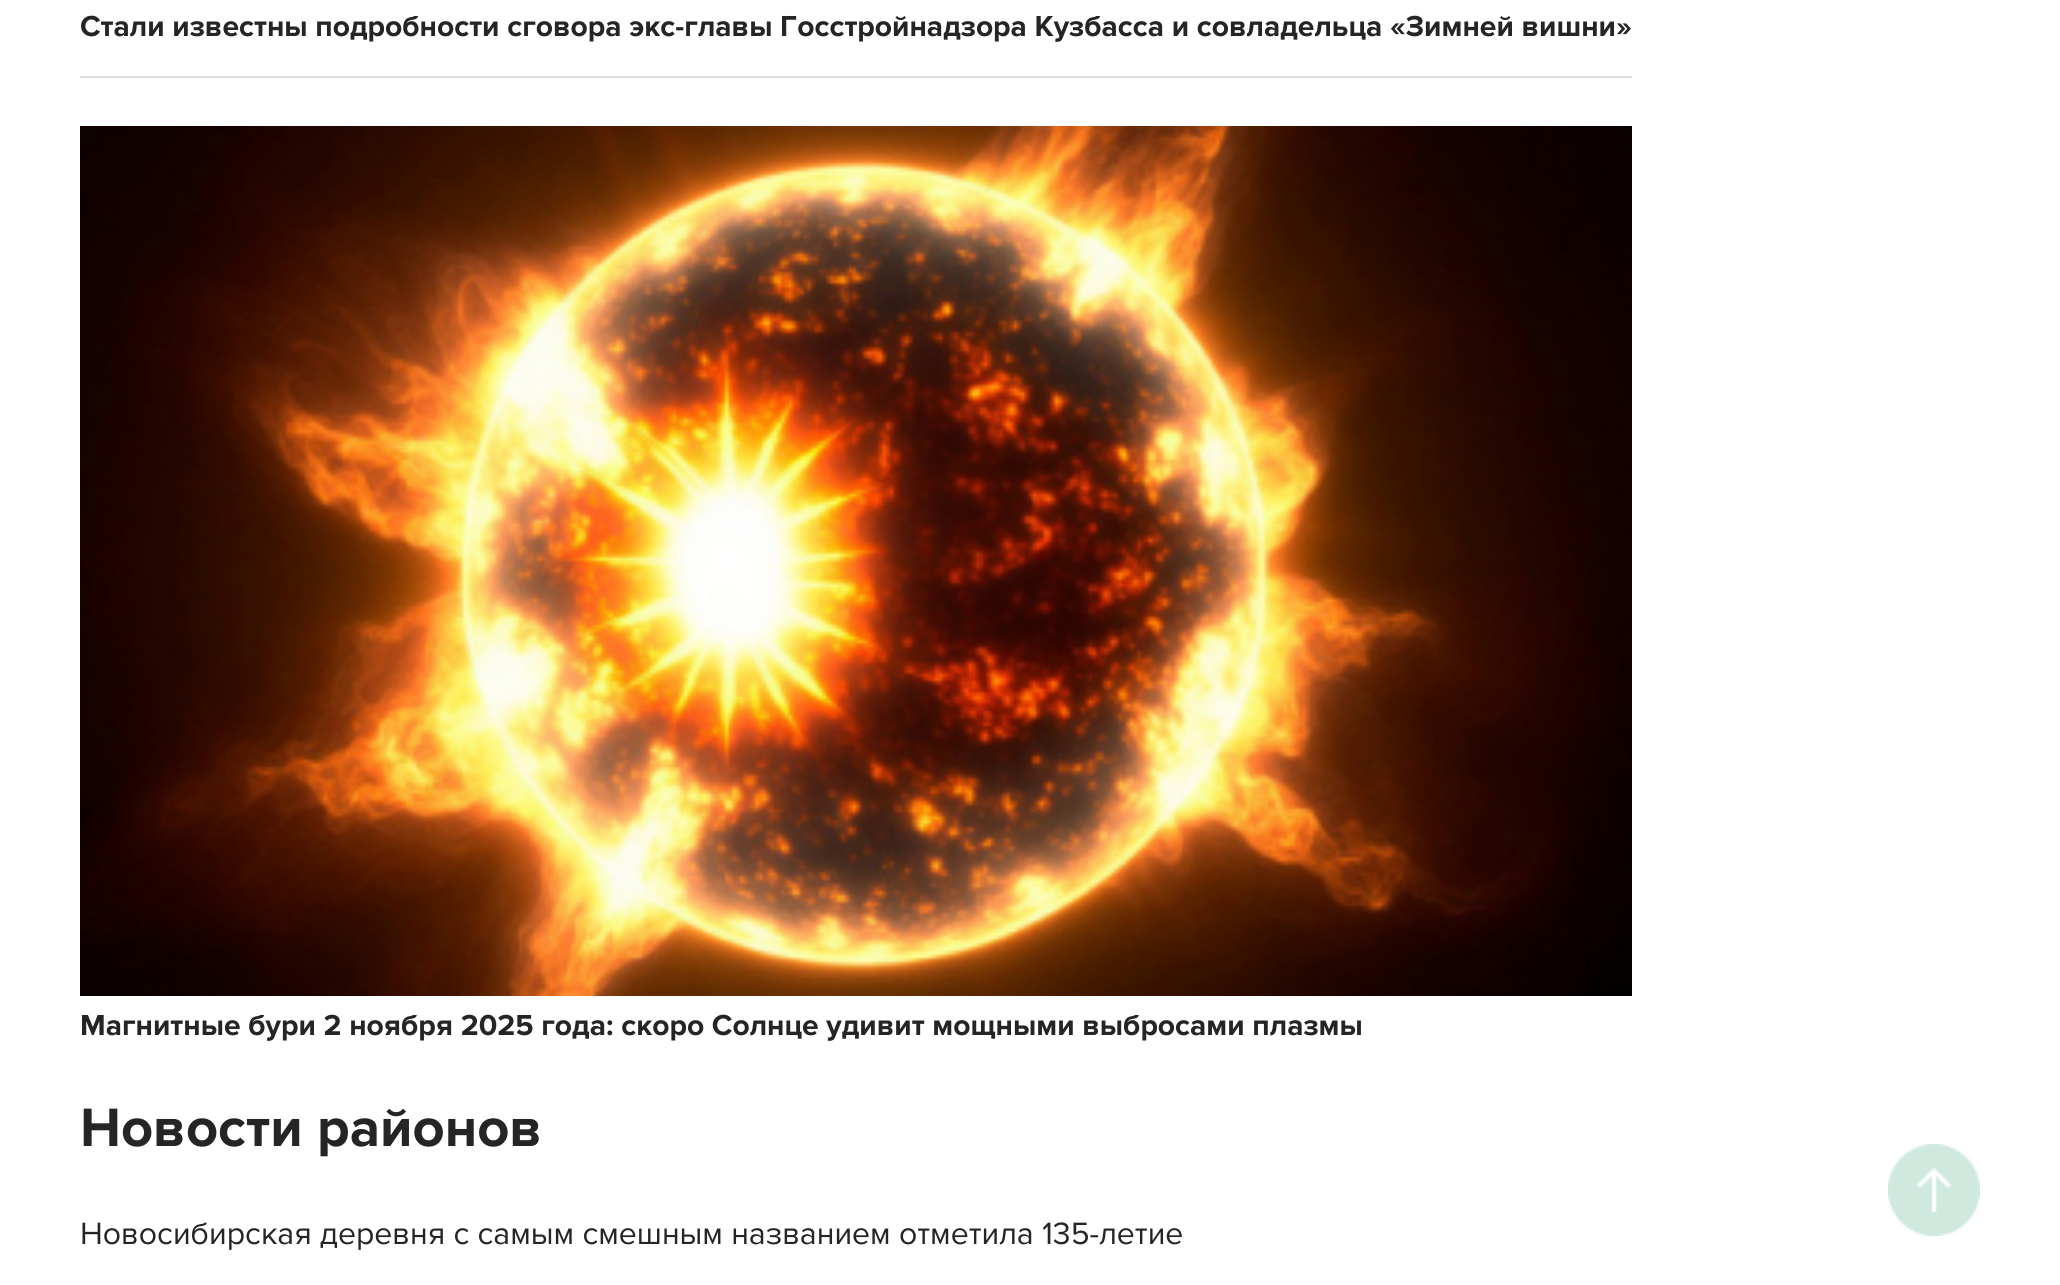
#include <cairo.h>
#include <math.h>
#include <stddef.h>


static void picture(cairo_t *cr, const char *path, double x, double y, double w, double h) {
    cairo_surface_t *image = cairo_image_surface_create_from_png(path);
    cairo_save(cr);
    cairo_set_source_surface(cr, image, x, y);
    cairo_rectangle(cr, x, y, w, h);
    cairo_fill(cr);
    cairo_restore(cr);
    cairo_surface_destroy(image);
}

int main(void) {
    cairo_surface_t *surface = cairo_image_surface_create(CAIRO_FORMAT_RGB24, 2060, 1285);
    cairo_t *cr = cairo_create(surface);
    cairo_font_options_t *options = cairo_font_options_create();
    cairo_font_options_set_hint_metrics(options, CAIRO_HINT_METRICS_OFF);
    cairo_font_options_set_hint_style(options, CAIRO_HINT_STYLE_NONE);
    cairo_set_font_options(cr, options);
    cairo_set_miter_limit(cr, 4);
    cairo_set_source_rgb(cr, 1, 1, 1);
    cairo_paint(cr);
    cairo_set_source_rgb(cr, 0.863, 0.863, 0.863);
    cairo_rectangle(cr, 80, 76, 1552, 2);
    cairo_fill(cr);
    cairo_select_font_face(cr, "Proxima Nova", CAIRO_FONT_SLANT_NORMAL, CAIRO_FONT_WEIGHT_BOLD);
    cairo_set_font_size(cr, 30);
    cairo_set_source_rgb(cr, 0.145, 0.145, 0.145);
    cairo_move_to(cr, 80, 36);
    cairo_show_text(cr, "Стали известны подробности сговора экс-главы Госстройнадзора Кузбасса и совладельца «Зимней вишни»");
    picture(cr, "img1.png", 80, 126, 1552, 870);
    cairo_move_to(cr, 80, 1035);
    cairo_show_text(cr, "Магнитные бури 2 ноября 2025 года: скоро Солнце удивит мощными выбросами плазмы");
    cairo_set_font_size(cr, 56);
    cairo_move_to(cr, 80, 1146);
    cairo_show_text(cr, "Новости районов");
    cairo_select_font_face(cr, "Proxima Nova", CAIRO_FONT_SLANT_NORMAL, CAIRO_FONT_WEIGHT_NORMAL);
    cairo_set_font_size(cr, 32);
    cairo_move_to(cr, 80, 1244);
    cairo_show_text(cr, "Новосибирская деревня с самым смешным названием отметила 135-летие");
    picture(cr, "img2.png", 1888, 1144, 92, 92);
    cairo_surface_write_to_png(surface, "page.png");
    cairo_font_options_destroy(options);
    cairo_destroy(cr);
    cairo_surface_destroy(surface);
    return 0;
}
